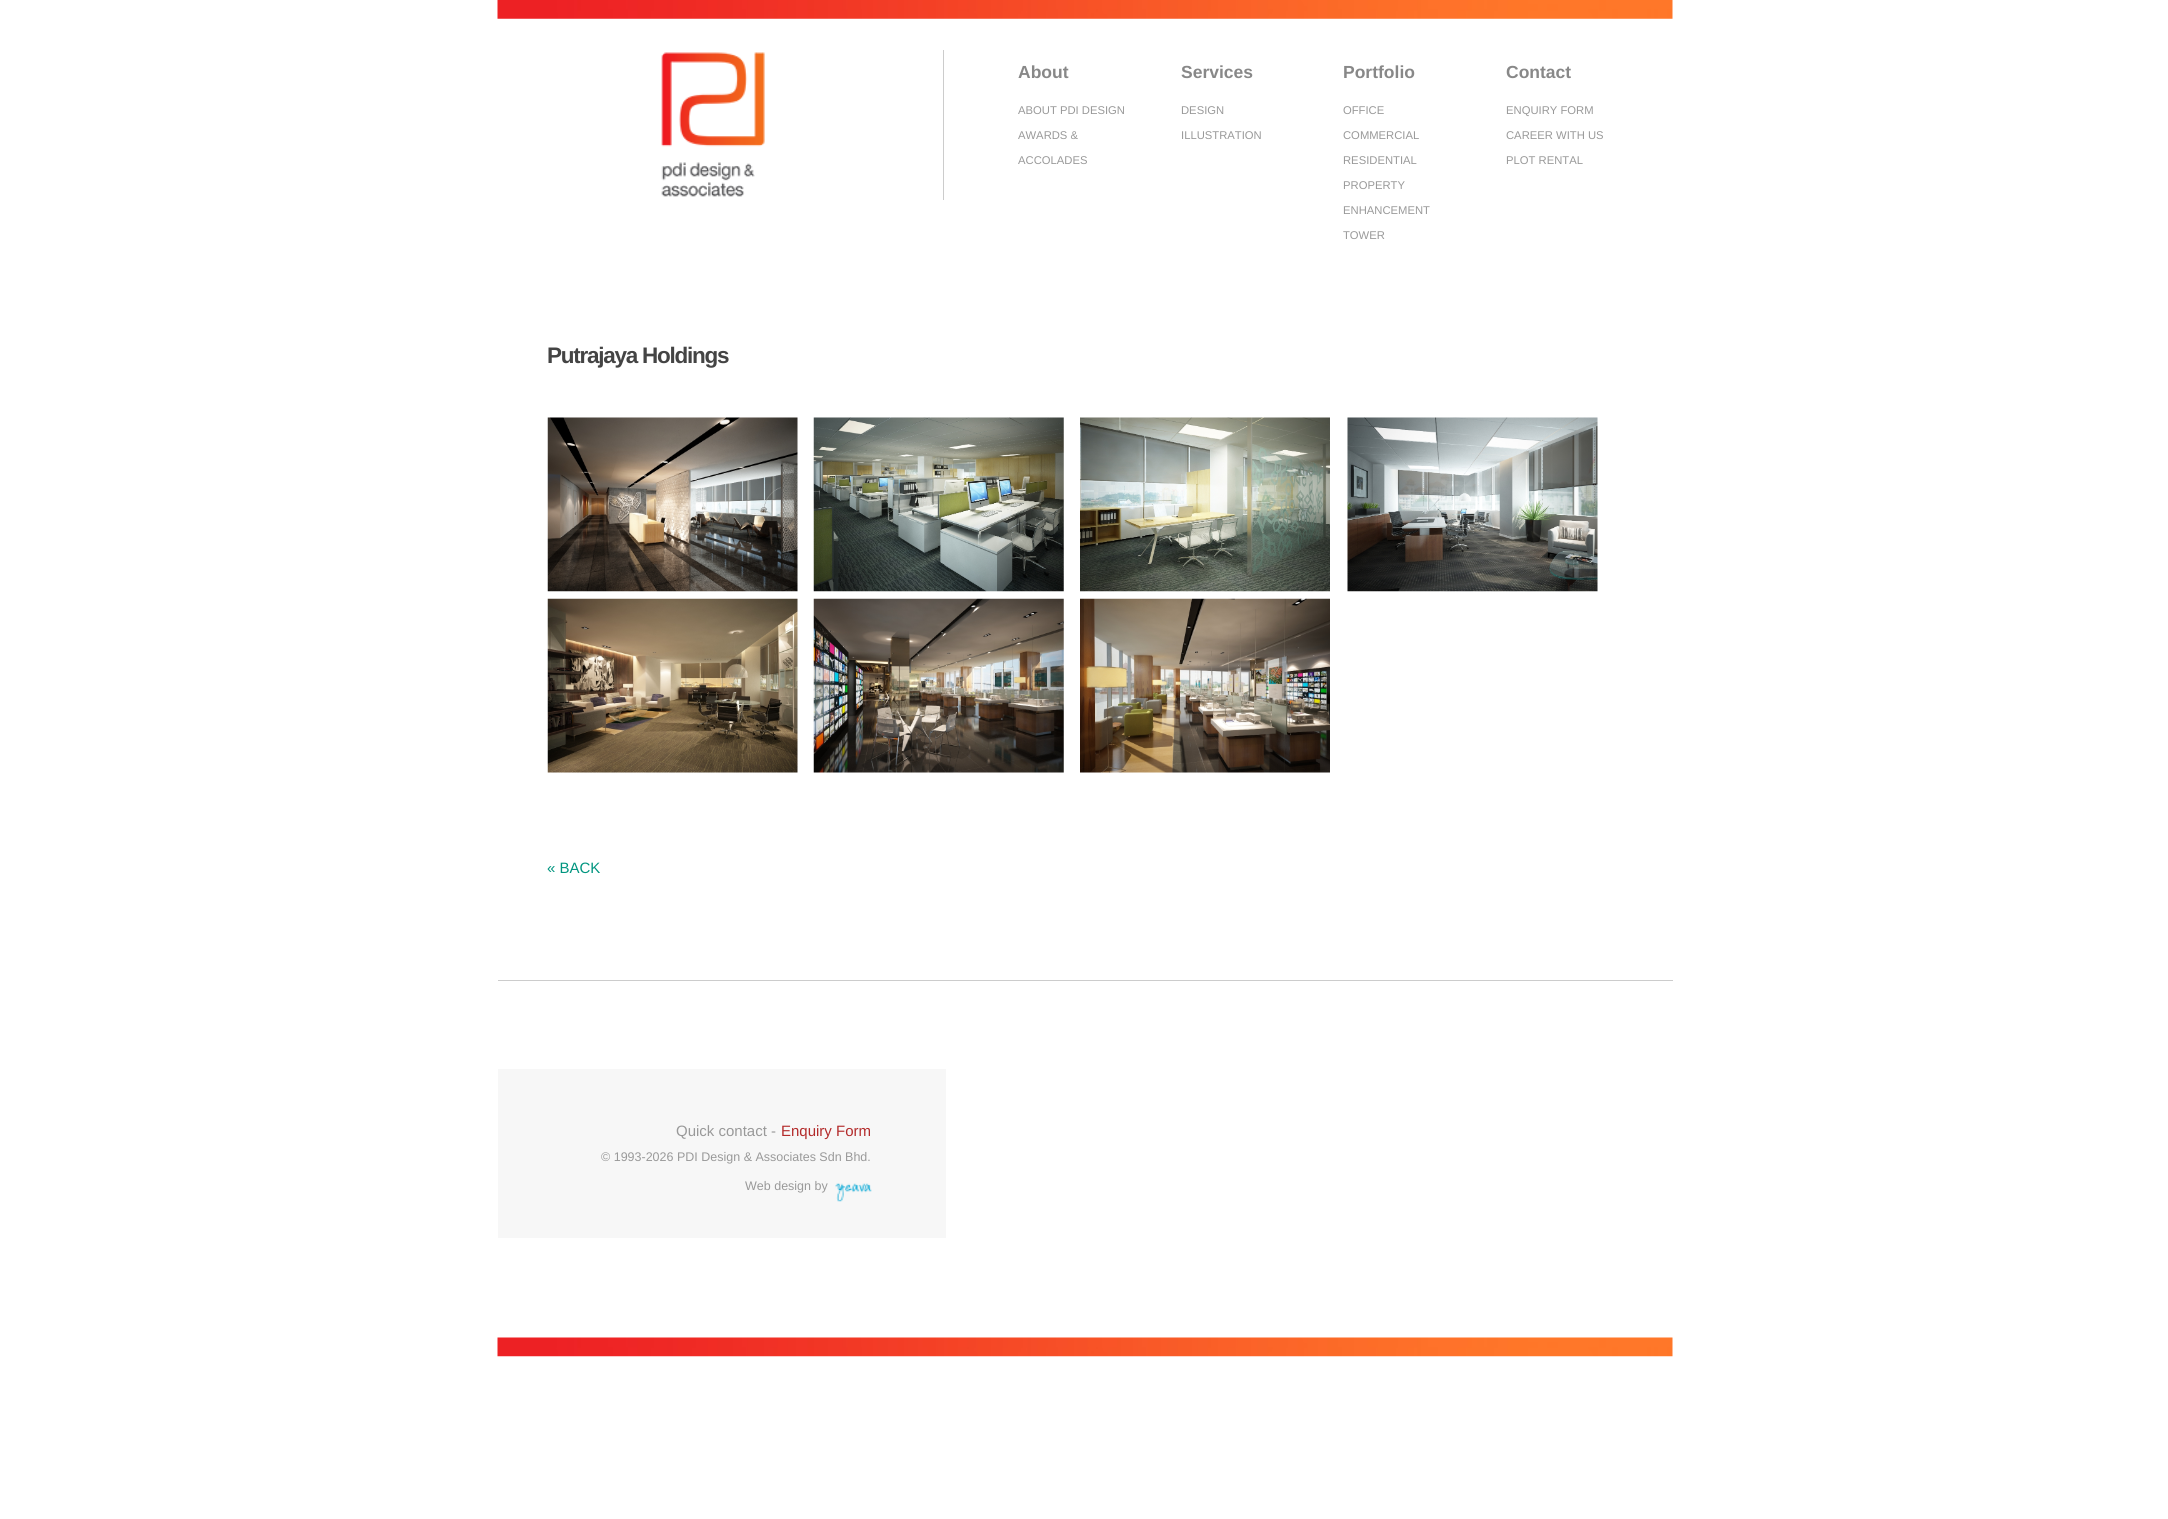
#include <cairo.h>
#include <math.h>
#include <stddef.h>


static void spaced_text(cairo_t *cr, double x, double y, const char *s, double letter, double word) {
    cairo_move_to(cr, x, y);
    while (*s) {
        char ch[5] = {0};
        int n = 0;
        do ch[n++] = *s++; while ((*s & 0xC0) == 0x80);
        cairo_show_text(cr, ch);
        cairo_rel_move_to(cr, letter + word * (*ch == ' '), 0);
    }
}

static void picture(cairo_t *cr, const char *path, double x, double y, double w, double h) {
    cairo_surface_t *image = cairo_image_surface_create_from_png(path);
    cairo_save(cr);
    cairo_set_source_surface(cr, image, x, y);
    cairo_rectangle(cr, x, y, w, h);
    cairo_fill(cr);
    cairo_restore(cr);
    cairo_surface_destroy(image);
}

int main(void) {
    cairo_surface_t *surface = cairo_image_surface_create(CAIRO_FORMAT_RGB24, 2168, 1519);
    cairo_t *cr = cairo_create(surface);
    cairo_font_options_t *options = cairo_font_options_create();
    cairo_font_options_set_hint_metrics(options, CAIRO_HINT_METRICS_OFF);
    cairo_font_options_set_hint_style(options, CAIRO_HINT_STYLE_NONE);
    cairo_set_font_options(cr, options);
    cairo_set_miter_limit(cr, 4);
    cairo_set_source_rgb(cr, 1, 1, 1);
    cairo_paint(cr);
    picture(cr, "img1.png", 497, 0, 1176, 19);
    picture(cr, "img2.png", 661, 52, 104, 145);
    cairo_set_source_rgb(cr, 0.8, 0.8, 0.8);
    cairo_rectangle(cr, 943, 50, 1, 150);
    cairo_fill(cr);
    cairo_select_font_face(cr, "Liberation Sans", CAIRO_FONT_SLANT_NORMAL, CAIRO_FONT_WEIGHT_BOLD);
    cairo_set_font_size(cr, 17.5);
    cairo_set_source_rgb(cr, 0.533, 0.533, 0.533);
    cairo_move_to(cr, 1018, 78);
    cairo_show_text(cr, "About");
    cairo_select_font_face(cr, "Liberation Sans", CAIRO_FONT_SLANT_NORMAL, CAIRO_FONT_WEIGHT_NORMAL);
    cairo_set_font_size(cr, 11.25);
    cairo_set_source_rgb(cr, 0.6, 0.6, 0.6);
    cairo_move_to(cr, 1018, 114);
    cairo_show_text(cr, "ABOUT PDI DESIGN");
    cairo_move_to(cr, 1018, 139);
    cairo_show_text(cr, "AWARDS &");
    cairo_move_to(cr, 1018, 164);
    cairo_show_text(cr, "ACCOLADES");
    cairo_select_font_face(cr, "Liberation Sans", CAIRO_FONT_SLANT_NORMAL, CAIRO_FONT_WEIGHT_BOLD);
    cairo_set_font_size(cr, 17.5);
    cairo_set_source_rgb(cr, 0.533, 0.533, 0.533);
    cairo_move_to(cr, 1181, 78);
    cairo_show_text(cr, "Services");
    cairo_select_font_face(cr, "Liberation Sans", CAIRO_FONT_SLANT_NORMAL, CAIRO_FONT_WEIGHT_NORMAL);
    cairo_set_font_size(cr, 11.25);
    cairo_set_source_rgb(cr, 0.6, 0.6, 0.6);
    cairo_move_to(cr, 1181, 114);
    cairo_show_text(cr, "DESIGN");
    cairo_move_to(cr, 1181, 139);
    cairo_show_text(cr, "ILLUSTRATION");
    cairo_select_font_face(cr, "Liberation Sans", CAIRO_FONT_SLANT_NORMAL, CAIRO_FONT_WEIGHT_BOLD);
    cairo_set_font_size(cr, 17.5);
    cairo_set_source_rgb(cr, 0.533, 0.533, 0.533);
    cairo_move_to(cr, 1343, 78);
    cairo_show_text(cr, "Portfolio");
    cairo_select_font_face(cr, "Liberation Sans", CAIRO_FONT_SLANT_NORMAL, CAIRO_FONT_WEIGHT_NORMAL);
    cairo_set_font_size(cr, 11.25);
    cairo_set_source_rgb(cr, 0.6, 0.6, 0.6);
    cairo_move_to(cr, 1343, 114);
    cairo_show_text(cr, "OFFICE");
    cairo_move_to(cr, 1343, 139);
    cairo_show_text(cr, "COMMERCIAL");
    cairo_move_to(cr, 1343, 164);
    cairo_show_text(cr, "RESIDENTIAL");
    cairo_move_to(cr, 1343, 189);
    cairo_show_text(cr, "PROPERTY");
    cairo_move_to(cr, 1343, 214);
    cairo_show_text(cr, "ENHANCEMENT");
    cairo_move_to(cr, 1343, 239);
    cairo_show_text(cr, "TOWER");
    cairo_select_font_face(cr, "Liberation Sans", CAIRO_FONT_SLANT_NORMAL, CAIRO_FONT_WEIGHT_BOLD);
    cairo_set_font_size(cr, 17.5);
    cairo_set_source_rgb(cr, 0.533, 0.533, 0.533);
    cairo_move_to(cr, 1506, 78);
    cairo_show_text(cr, "Contact");
    cairo_select_font_face(cr, "Liberation Sans", CAIRO_FONT_SLANT_NORMAL, CAIRO_FONT_WEIGHT_NORMAL);
    cairo_set_font_size(cr, 11.25);
    cairo_set_source_rgb(cr, 0.6, 0.6, 0.6);
    cairo_move_to(cr, 1506, 114);
    cairo_show_text(cr, "ENQUIRY FORM");
    cairo_move_to(cr, 1506, 139);
    cairo_show_text(cr, "CAREER WITH US");
    cairo_move_to(cr, 1506, 164);
    cairo_show_text(cr, "PLOT RENTAL");
    cairo_select_font_face(cr, "Liberation Sans", CAIRO_FONT_SLANT_NORMAL, CAIRO_FONT_WEIGHT_BOLD);
    cairo_set_font_size(cr, 22.5);
    cairo_set_source_rgb(cr, 0.267, 0.267, 0.267);
    spaced_text(cr, 547, 363, "Putrajaya Holdings", -1.25, 0);
    picture(cr, "img3.png", 547, 417, 251, 175);
    picture(cr, "img4.png", 813, 417, 251, 175);
    picture(cr, "img5.png", 1080, 417, 250, 175);
    picture(cr, "img6.png", 1347, 417, 251, 175);
    picture(cr, "img7.png", 547, 598, 251, 175);
    picture(cr, "img8.png", 813, 598, 251, 175);
    picture(cr, "img9.png", 1080, 598, 250, 175);
    cairo_select_font_face(cr, "Liberation Sans", CAIRO_FONT_SLANT_NORMAL, CAIRO_FONT_WEIGHT_NORMAL);
    cairo_set_font_size(cr, 15);
    cairo_set_source_rgb(cr, 0.004, 0.584, 0.498);
    cairo_move_to(cr, 547, 873);
    cairo_show_text(cr, "« BACK");
    picture(cr, "img10.png", 497, 1337, 1176, 20);
    cairo_set_source_rgb(cr, 0.8, 0.8, 0.8);
    cairo_rectangle(cr, 498, 980, 1175, 1);
    cairo_fill(cr);
    cairo_set_source_rgb(cr, 0.965, 0.965, 0.965);
    cairo_rectangle(cr, 498, 1069, 448, 169);
    cairo_fill(cr);
    cairo_set_source_rgb(cr, 0.6, 0.6, 0.6);
    cairo_move_to(cr, 676, 1136);
    cairo_show_text(cr, "Quick contact -");
    cairo_set_source_rgb(cr, 0.702, 0.169, 0.169);
    cairo_move_to(cr, 781, 1136);
    cairo_show_text(cr, "Enquiry Form");
    cairo_set_font_size(cr, 12.5);
    cairo_set_source_rgb(cr, 0.6, 0.6, 0.6);
    cairo_move_to(cr, 601, 1161);
    cairo_show_text(cr, "© 1993-2026 PDI Design & Associates Sdn Bhd.");
    cairo_move_to(cr, 745, 1190);
    cairo_show_text(cr, "Web design by");
    picture(cr, "img11.png", 835, 1183, 37, 19);
    cairo_surface_write_to_png(surface, "page.png");
    cairo_font_options_destroy(options);
    cairo_destroy(cr);
    cairo_surface_destroy(surface);
    return 0;
}
